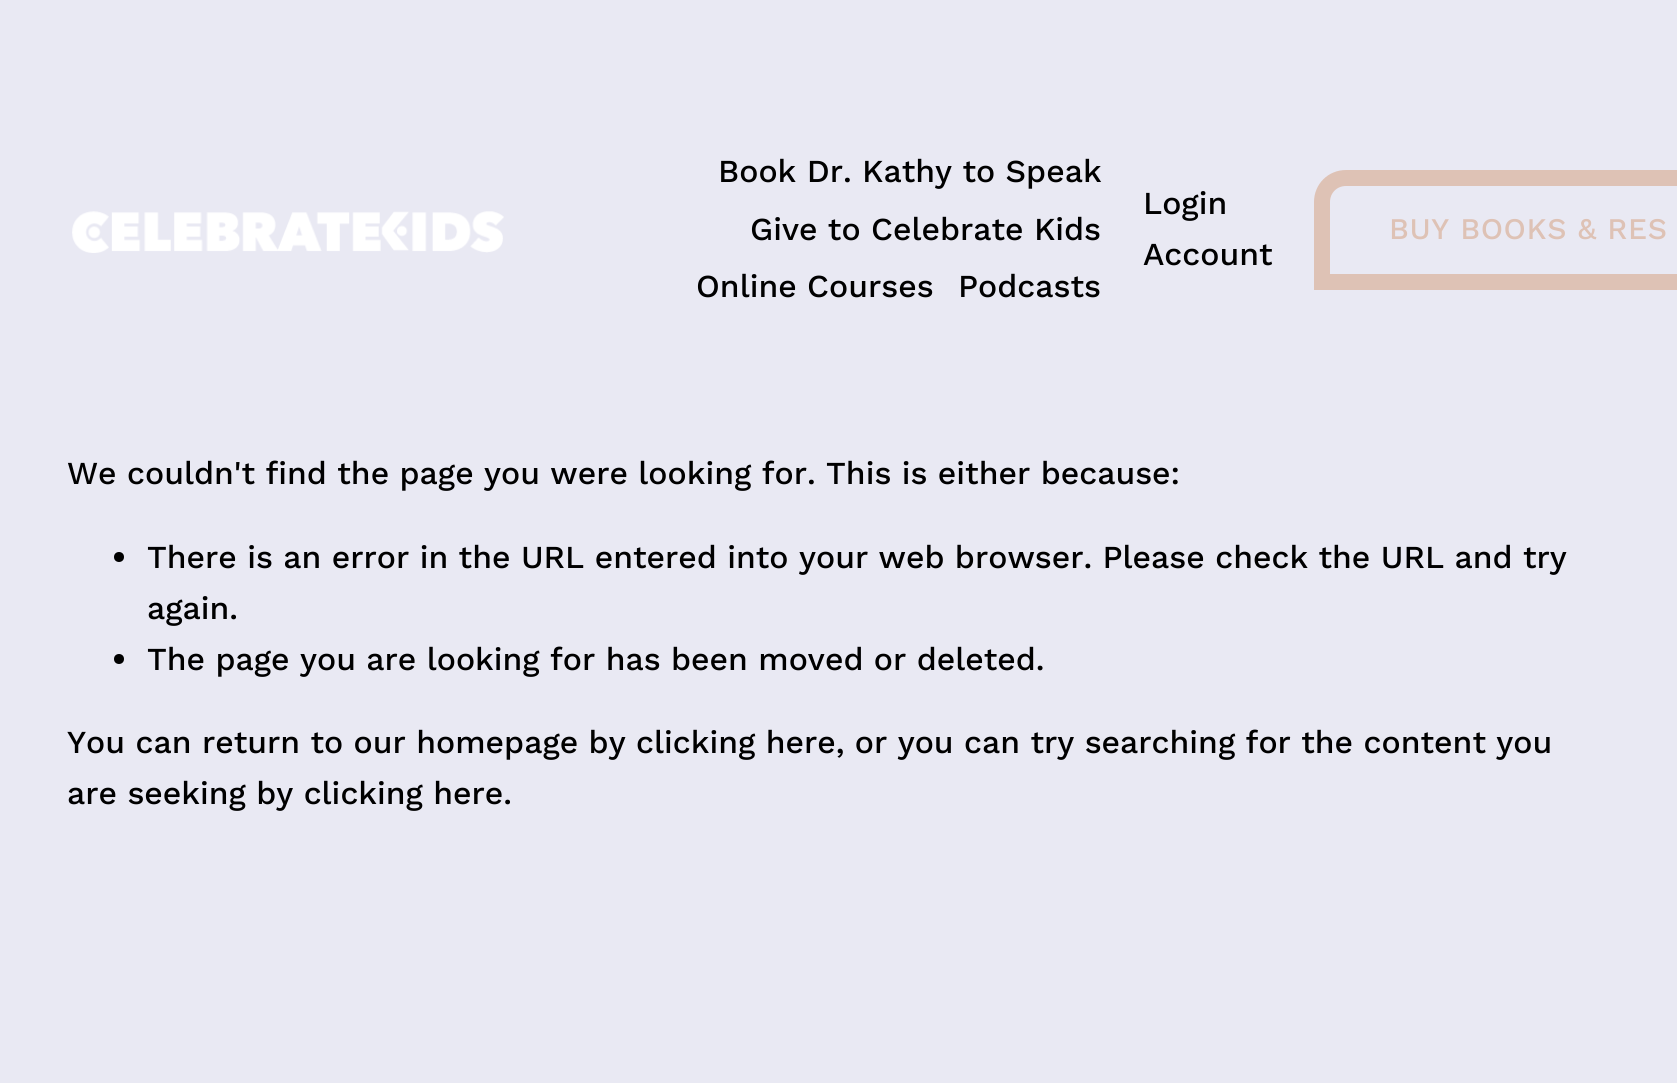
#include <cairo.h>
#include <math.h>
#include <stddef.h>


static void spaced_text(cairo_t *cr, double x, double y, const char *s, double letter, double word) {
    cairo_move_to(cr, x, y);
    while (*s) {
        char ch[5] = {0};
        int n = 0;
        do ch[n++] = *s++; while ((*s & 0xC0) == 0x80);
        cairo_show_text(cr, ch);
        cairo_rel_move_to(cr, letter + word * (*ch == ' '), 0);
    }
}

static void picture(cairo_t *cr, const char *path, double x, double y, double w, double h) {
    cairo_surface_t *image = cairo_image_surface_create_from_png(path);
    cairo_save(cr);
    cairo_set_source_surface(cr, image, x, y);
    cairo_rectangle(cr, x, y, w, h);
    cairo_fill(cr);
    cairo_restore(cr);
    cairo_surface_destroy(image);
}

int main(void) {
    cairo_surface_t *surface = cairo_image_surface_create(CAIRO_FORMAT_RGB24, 1677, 1083);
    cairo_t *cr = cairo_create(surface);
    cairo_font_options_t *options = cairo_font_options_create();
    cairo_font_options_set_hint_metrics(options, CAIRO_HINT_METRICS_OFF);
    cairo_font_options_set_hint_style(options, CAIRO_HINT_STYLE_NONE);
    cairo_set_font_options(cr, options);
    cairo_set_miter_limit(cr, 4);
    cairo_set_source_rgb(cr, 0.914, 0.914, 0.953);
    cairo_paint(cr);
    picture(cr, "img1.png", 72, 211, 432, 42);
    cairo_select_font_face(cr, "Work Sans Medium", CAIRO_FONT_SLANT_NORMAL, CAIRO_FONT_WEIGHT_NORMAL);
    cairo_set_font_size(cr, 32);
    cairo_set_source_rgb(cr, 0, 0, 0);
    cairo_move_to(cr, 718, 182);
    cairo_show_text(cr, "Book Dr. Kathy to Speak");
    cairo_move_to(cr, 750, 240);
    cairo_show_text(cr, "Give to Celebrate Kids");
    cairo_move_to(cr, 696, 297);
    cairo_show_text(cr, "Online Courses");
    cairo_move_to(cr, 958, 297);
    cairo_show_text(cr, "Podcasts");
    cairo_move_to(cr, 1143, 214);
    cairo_show_text(cr, "Login");
    cairo_move_to(cr, 1143, 265);
    cairo_show_text(cr, "Account");
    cairo_new_path(cr);
    cairo_move_to(cr, 1346, 178);
    cairo_line_to(cr, 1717, 178);
    cairo_line_to(cr, 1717, 258);
    cairo_curve_to(cr, 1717, 271.5, 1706.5, 282, 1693, 282);
    cairo_line_to(cr, 1322, 282);
    cairo_line_to(cr, 1322, 202);
    cairo_curve_to(cr, 1322, 188.5, 1332.5, 178, 1346, 178);
    cairo_close_path(cr);
    cairo_set_source_rgb(cr, 0.871, 0.761, 0.71);
    cairo_set_line_width(cr, 16);
    cairo_stroke(cr);
    cairo_set_font_size(cr, 30);
    spaced_text(cr, 1389, 239, "BUY BOOKS & RES", 0.6, 0);
    cairo_set_font_size(cr, 32);
    cairo_set_source_rgb(cr, 0, 0, 0);
    cairo_move_to(cr, 67, 484);
    cairo_show_text(cr, "We couldn't find the page you were looking for. This is either because:");
    cairo_new_path(cr);
    cairo_arc(cr, 119, 557, 5, 0, 2 * M_PI);
    cairo_fill(cr);
    cairo_move_to(cr, 147, 568);
    cairo_show_text(cr, "There is an error in the URL entered into your web browser. Please check the URL and try");
    cairo_move_to(cr, 147, 619);
    cairo_show_text(cr, "again.");
    cairo_new_path(cr);
    cairo_arc(cr, 119, 659, 5, 0, 2 * M_PI);
    cairo_fill(cr);
    cairo_move_to(cr, 147, 670);
    cairo_show_text(cr, "The page you are looking for has been moved or deleted.");
    cairo_move_to(cr, 67, 753);
    cairo_show_text(cr, "You can return to our homepage by clicking here, or you can try searching for the content you");
    cairo_move_to(cr, 67, 804);
    cairo_show_text(cr, "are seeking by clicking here.");
    cairo_surface_write_to_png(surface, "page.png");
    cairo_font_options_destroy(options);
    cairo_destroy(cr);
    cairo_surface_destroy(surface);
    return 0;
}
